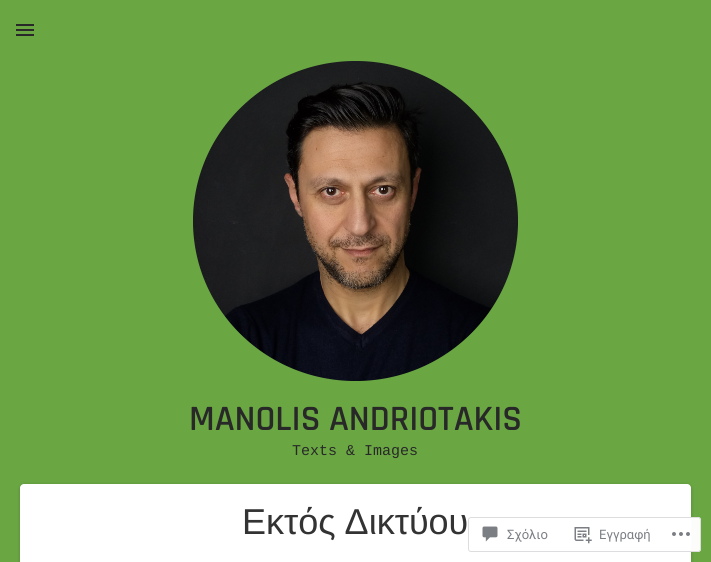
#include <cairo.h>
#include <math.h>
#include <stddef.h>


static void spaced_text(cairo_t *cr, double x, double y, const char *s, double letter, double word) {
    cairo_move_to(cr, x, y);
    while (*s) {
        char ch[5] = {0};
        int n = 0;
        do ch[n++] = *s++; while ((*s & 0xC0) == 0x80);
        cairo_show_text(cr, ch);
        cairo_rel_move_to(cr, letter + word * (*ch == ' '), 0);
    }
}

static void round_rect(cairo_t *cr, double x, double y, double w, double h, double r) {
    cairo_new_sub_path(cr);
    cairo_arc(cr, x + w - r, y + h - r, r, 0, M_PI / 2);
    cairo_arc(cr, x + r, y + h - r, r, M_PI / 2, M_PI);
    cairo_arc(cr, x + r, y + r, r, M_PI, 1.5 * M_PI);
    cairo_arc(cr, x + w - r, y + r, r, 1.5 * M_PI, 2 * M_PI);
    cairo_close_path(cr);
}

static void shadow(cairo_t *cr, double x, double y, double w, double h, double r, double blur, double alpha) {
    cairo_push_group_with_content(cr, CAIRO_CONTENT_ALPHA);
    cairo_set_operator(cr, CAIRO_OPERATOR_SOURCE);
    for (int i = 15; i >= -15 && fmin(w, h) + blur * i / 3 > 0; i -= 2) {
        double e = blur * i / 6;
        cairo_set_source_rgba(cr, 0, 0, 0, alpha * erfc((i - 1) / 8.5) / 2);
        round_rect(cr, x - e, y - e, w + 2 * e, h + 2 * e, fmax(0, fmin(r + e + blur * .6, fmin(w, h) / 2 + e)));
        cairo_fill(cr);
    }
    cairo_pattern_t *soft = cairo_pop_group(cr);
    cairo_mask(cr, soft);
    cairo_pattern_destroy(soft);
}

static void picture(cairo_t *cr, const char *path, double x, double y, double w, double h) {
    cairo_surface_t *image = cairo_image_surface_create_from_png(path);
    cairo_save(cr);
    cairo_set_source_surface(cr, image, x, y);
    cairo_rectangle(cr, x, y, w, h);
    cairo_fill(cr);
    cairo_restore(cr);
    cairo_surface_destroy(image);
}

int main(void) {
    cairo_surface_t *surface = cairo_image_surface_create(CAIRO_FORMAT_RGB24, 711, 562);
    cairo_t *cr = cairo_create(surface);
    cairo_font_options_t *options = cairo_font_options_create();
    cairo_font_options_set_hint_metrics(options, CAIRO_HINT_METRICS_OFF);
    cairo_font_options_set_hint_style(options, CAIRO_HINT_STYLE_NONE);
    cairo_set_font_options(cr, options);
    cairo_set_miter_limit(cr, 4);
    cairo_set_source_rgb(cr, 0.416, 0.655, 0.263);
    cairo_paint(cr);
    picture(cr, "img1.png", 16, 24, 18, 12);
    picture(cr, "img2.png", 193, 61, 325, 320);
    cairo_select_font_face(cr, "Rajdhani SemiBold", CAIRO_FONT_SLANT_NORMAL, CAIRO_FONT_WEIGHT_NORMAL);
    cairo_set_font_size(cr, 36);
    cairo_set_source_rgb(cr, 0.157, 0.157, 0.157);
    cairo_move_to(cr, 189, 430);
    cairo_show_text(cr, "MANOLIS ANDRIOTAKIS");
    cairo_select_font_face(cr, "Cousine", CAIRO_FONT_SLANT_NORMAL, CAIRO_FONT_WEIGHT_NORMAL);
    cairo_set_font_size(cr, 15);
    cairo_move_to(cr, 292, 455);
    cairo_show_text(cr, "Texts & Images");
    cairo_set_source_rgb(cr, 0, 0, 0);
    shadow(cr, 20, 485, 671, 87, 4, 2, 0.2);
    cairo_set_source_rgb(cr, 1, 1, 1);
    round_rect(cr, 20, 484, 671, 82, 4);
    cairo_fill(cr);
    cairo_select_font_face(cr, "Liberation Sans", CAIRO_FONT_SLANT_NORMAL, CAIRO_FONT_WEIGHT_NORMAL);
    cairo_set_font_size(cr, 36);
    cairo_set_source_rgb(cr, 0.2, 0.2, 0.2);
    spaced_text(cr, 242, 534, "Εκτός Δικτύου", 0, -1);
    cairo_set_source_rgba(cr, 1, 1, 1, 0.98);
    round_rect(cr, 468, 517, 233, 35, 3);
    cairo_fill(cr);
    round_rect(cr, 468.5, 517.5, 232, 34, 2.5);
    cairo_set_source_rgba(cr, 0.863, 0.863, 0.871, 0.98);
    cairo_set_line_width(cr, 1);
    cairo_stroke(cr);
    picture(cr, "img3.png", 482, 526, 16, 16);
    cairo_select_font_face(cr, "Roboto", CAIRO_FONT_SLANT_NORMAL, CAIRO_FONT_WEIGHT_NORMAL);
    cairo_set_font_size(cr, 13);
    cairo_set_source_rgb(cr, 0.482, 0.498, 0.522);
    cairo_move_to(cr, 507, 539);
    cairo_show_text(cr, "Σχόλιο");
    picture(cr, "img4.png", 574, 527, 18, 17);
    cairo_move_to(cr, 599, 539);
    cairo_show_text(cr, "Εγγραφή");
    picture(cr, "img5.png", 672, 532, 18, 4);
    cairo_surface_write_to_png(surface, "page.png");
    cairo_font_options_destroy(options);
    cairo_destroy(cr);
    cairo_surface_destroy(surface);
    return 0;
}
